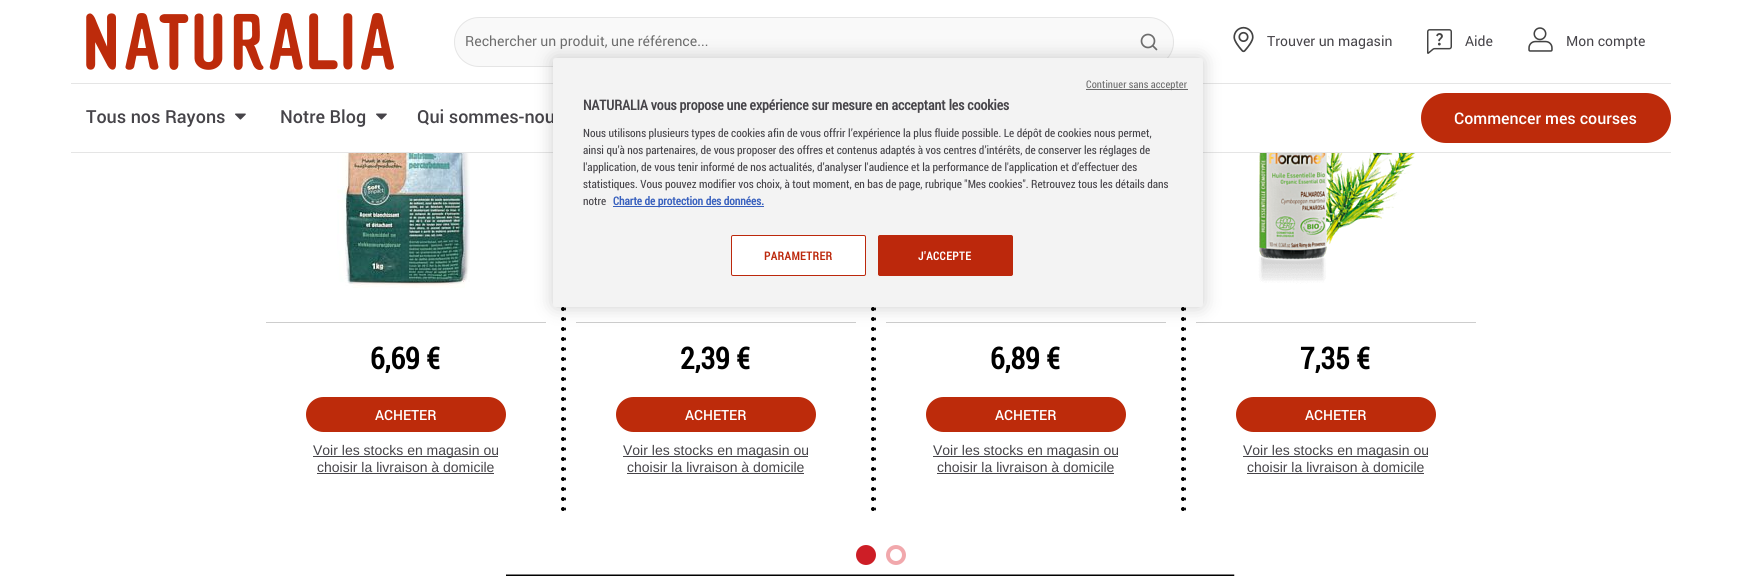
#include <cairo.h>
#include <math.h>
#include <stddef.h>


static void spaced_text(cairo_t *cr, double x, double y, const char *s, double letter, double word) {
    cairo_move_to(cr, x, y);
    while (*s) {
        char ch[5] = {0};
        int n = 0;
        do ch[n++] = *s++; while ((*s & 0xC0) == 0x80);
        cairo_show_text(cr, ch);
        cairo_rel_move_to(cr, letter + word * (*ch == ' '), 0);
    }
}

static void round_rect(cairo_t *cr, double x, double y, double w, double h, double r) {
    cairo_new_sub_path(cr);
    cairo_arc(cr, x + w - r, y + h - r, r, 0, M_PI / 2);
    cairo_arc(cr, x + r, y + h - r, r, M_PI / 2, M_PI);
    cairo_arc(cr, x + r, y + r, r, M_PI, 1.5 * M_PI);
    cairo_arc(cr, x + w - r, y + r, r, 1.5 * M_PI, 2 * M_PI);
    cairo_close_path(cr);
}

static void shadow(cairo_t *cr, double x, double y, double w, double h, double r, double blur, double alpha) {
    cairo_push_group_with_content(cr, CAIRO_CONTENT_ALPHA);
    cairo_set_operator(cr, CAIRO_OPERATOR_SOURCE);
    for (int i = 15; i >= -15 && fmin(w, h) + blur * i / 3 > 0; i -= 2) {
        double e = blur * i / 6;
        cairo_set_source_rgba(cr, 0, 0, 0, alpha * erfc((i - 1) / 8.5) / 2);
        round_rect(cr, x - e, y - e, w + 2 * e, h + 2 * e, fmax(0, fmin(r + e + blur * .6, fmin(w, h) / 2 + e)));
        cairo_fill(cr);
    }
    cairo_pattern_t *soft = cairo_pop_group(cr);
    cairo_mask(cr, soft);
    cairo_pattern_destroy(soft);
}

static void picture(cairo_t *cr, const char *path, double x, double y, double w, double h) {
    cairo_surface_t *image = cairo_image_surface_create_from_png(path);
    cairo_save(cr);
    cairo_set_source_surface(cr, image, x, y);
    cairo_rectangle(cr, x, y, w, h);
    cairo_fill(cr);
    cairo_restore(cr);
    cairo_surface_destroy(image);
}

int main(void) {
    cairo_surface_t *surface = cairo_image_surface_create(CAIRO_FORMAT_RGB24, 1741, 576);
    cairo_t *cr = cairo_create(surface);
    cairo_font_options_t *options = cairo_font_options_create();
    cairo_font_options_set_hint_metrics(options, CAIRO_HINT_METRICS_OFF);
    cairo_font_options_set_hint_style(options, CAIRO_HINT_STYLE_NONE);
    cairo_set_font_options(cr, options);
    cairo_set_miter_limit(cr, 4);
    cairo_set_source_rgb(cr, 1, 1, 1);
    cairo_paint(cr);
    cairo_set_source_rgb(cr, 0.898, 0.898, 0.898);
    cairo_rectangle(cr, 71, 152, 1600, 1);
    cairo_fill(cr);
    picture(cr, "img1.png", 86, 13, 308, 57);
    cairo_set_source_rgb(cr, 0.976, 0.976, 0.976);
    round_rect(cr, 454.5, 17.5, 719, 49, 24.5);
    cairo_fill_preserve(cr);
    cairo_set_source_rgb(cr, 0.898, 0.898, 0.898);
    cairo_set_line_width(cr, 1);
    cairo_stroke(cr);
    cairo_select_font_face(cr, "Roboto", CAIRO_FONT_SLANT_NORMAL, CAIRO_FONT_WEIGHT_NORMAL);
    cairo_set_font_size(cr, 14);
    cairo_set_source_rgb(cr, 0.431, 0.431, 0.431);
    cairo_move_to(cr, 465, 46);
    cairo_show_text(cr, "Rechercher un produit, une référence...");
    cairo_new_path(cr);
    cairo_arc(cr, 1148, 41, 6.5, 0, 2 * M_PI);
    cairo_set_line_width(cr, 1.7);
    cairo_stroke(cr);
    cairo_new_path(cr);
    cairo_move_to(cr, 1156.5, 49.5);
    cairo_line_to(cr, 1153, 46);
    cairo_set_line_cap(cr, CAIRO_LINE_CAP_ROUND);
    cairo_set_line_join(cr, CAIRO_LINE_JOIN_ROUND);
    cairo_stroke(cr);
    picture(cr, "img2.png", 1233, 26, 21, 27);
    cairo_set_source_rgb(cr, 0.275, 0.267, 0.286);
    cairo_move_to(cr, 1267, 46);
    cairo_show_text(cr, "Trouver un magasin");
    picture(cr, "img3.png", 1427, 29, 25, 25);
    cairo_move_to(cr, 1465, 46);
    cairo_show_text(cr, "Aide");
    picture(cr, "img4.png", 1528, 27, 25, 25);
    cairo_move_to(cr, 1566, 46);
    cairo_show_text(cr, "Mon compte");
    cairo_set_source_rgb(cr, 0.898, 0.898, 0.898);
    cairo_rectangle(cr, 71, 83, 1600, 1);
    cairo_fill(cr);
    cairo_select_font_face(cr, "Roboto Medium", CAIRO_FONT_SLANT_NORMAL, CAIRO_FONT_WEIGHT_NORMAL);
    cairo_set_font_size(cr, 18);
    cairo_set_source_rgb(cr, 0.275, 0.267, 0.286);
    cairo_move_to(cr, 86, 123);
    cairo_show_text(cr, "Tous nos Rayons");
    picture(cr, "img5.png", 235, 113, 11, 7);
    cairo_move_to(cr, 280, 123);
    cairo_show_text(cr, "Notre Blog");
    picture(cr, "img5.png", 376, 113, 11, 7);
    cairo_move_to(cr, 417, 123);
    cairo_show_text(cr, "Qui sommes-nou");
    cairo_set_source_rgb(cr, 0.741, 0.169, 0.043);
    round_rect(cr, 1421, 93, 250, 50, 25);
    cairo_fill(cr);
    cairo_set_font_size(cr, 16);
    cairo_set_source_rgb(cr, 1, 1, 1);
    cairo_move_to(cr, 1454, 124);
    cairo_show_text(cr, "Commencer mes courses");
    cairo_set_source_rgb(cr, 0.804, 0.804, 0.804);
    cairo_rectangle(cr, 266, 322, 280, 1);
    cairo_fill(cr);
    picture(cr, "img6.png", 337, 153, 133, 135);
    cairo_select_font_face(cr, "Roboto Condensed", CAIRO_FONT_SLANT_NORMAL, CAIRO_FONT_WEIGHT_BOLD);
    cairo_set_font_size(cr, 30);
    cairo_set_source_rgb(cr, 0, 0, 0);
    cairo_move_to(cr, 370, 369);
    cairo_show_text(cr, "6,69 €");
    cairo_set_source_rgb(cr, 0.741, 0.169, 0.043);
    round_rect(cr, 306, 397, 200, 35, 17.5);
    cairo_fill(cr);
    cairo_select_font_face(cr, "Roboto Medium", CAIRO_FONT_SLANT_NORMAL, CAIRO_FONT_WEIGHT_NORMAL);
    cairo_set_font_size(cr, 14);
    cairo_set_source_rgb(cr, 1, 1, 1);
    cairo_move_to(cr, 375, 420);
    cairo_show_text(cr, "ACHETER");
    cairo_set_source_rgb(cr, 0.275, 0.267, 0.286);
    cairo_rectangle(cr, 313, 456, 185, 1);
    cairo_fill(cr);
    cairo_select_font_face(cr, "Liberation Sans", CAIRO_FONT_SLANT_NORMAL, CAIRO_FONT_WEIGHT_NORMAL);
    cairo_move_to(cr, 313, 455);
    cairo_show_text(cr, "Voir les stocks en magasin ou");
    cairo_move_to(cr, 317, 472);
    cairo_show_text(cr, "choisir la livraison à domicile");
    cairo_rectangle(cr, 317, 473, 177, 1);
    cairo_fill(cr);
    picture(cr, "img7.png", 561, 307, 5, 204);
    cairo_set_source_rgb(cr, 0.804, 0.804, 0.804);
    cairo_rectangle(cr, 576, 322, 280, 1);
    cairo_fill(cr);
    cairo_select_font_face(cr, "Roboto Condensed", CAIRO_FONT_SLANT_NORMAL, CAIRO_FONT_WEIGHT_BOLD);
    cairo_set_font_size(cr, 30);
    cairo_set_source_rgb(cr, 0, 0, 0);
    cairo_move_to(cr, 680, 369);
    cairo_show_text(cr, "2,39 €");
    cairo_set_source_rgb(cr, 0.741, 0.169, 0.043);
    round_rect(cr, 616, 397, 200, 35, 17.5);
    cairo_fill(cr);
    cairo_select_font_face(cr, "Roboto Medium", CAIRO_FONT_SLANT_NORMAL, CAIRO_FONT_WEIGHT_NORMAL);
    cairo_set_font_size(cr, 14);
    cairo_set_source_rgb(cr, 1, 1, 1);
    cairo_move_to(cr, 685, 420);
    cairo_show_text(cr, "ACHETER");
    cairo_set_source_rgb(cr, 0.275, 0.267, 0.286);
    cairo_rectangle(cr, 623, 456, 185, 1);
    cairo_fill(cr);
    cairo_select_font_face(cr, "Liberation Sans", CAIRO_FONT_SLANT_NORMAL, CAIRO_FONT_WEIGHT_NORMAL);
    cairo_move_to(cr, 623, 455);
    cairo_show_text(cr, "Voir les stocks en magasin ou");
    cairo_move_to(cr, 627, 472);
    cairo_show_text(cr, "choisir la livraison à domicile");
    cairo_rectangle(cr, 627, 473, 177, 1);
    cairo_fill(cr);
    picture(cr, "img7.png", 871, 307, 5, 204);
    cairo_set_source_rgb(cr, 0.804, 0.804, 0.804);
    cairo_rectangle(cr, 886, 322, 280, 1);
    cairo_fill(cr);
    cairo_select_font_face(cr, "Roboto Condensed", CAIRO_FONT_SLANT_NORMAL, CAIRO_FONT_WEIGHT_BOLD);
    cairo_set_font_size(cr, 30);
    cairo_set_source_rgb(cr, 0, 0, 0);
    cairo_move_to(cr, 990, 369);
    cairo_show_text(cr, "6,89 €");
    cairo_set_source_rgb(cr, 0.741, 0.169, 0.043);
    round_rect(cr, 926, 397, 200, 35, 17.5);
    cairo_fill(cr);
    cairo_select_font_face(cr, "Roboto Medium", CAIRO_FONT_SLANT_NORMAL, CAIRO_FONT_WEIGHT_NORMAL);
    cairo_set_font_size(cr, 14);
    cairo_set_source_rgb(cr, 1, 1, 1);
    cairo_move_to(cr, 995, 420);
    cairo_show_text(cr, "ACHETER");
    cairo_set_source_rgb(cr, 0.275, 0.267, 0.286);
    cairo_rectangle(cr, 933, 456, 185, 1);
    cairo_fill(cr);
    cairo_select_font_face(cr, "Liberation Sans", CAIRO_FONT_SLANT_NORMAL, CAIRO_FONT_WEIGHT_NORMAL);
    cairo_move_to(cr, 933, 455);
    cairo_show_text(cr, "Voir les stocks en magasin ou");
    cairo_move_to(cr, 937, 472);
    cairo_show_text(cr, "choisir la livraison à domicile");
    cairo_rectangle(cr, 937, 473, 177, 1);
    cairo_fill(cr);
    picture(cr, "img7.png", 1181, 307, 5, 204);
    cairo_set_source_rgb(cr, 0.804, 0.804, 0.804);
    cairo_rectangle(cr, 1196, 322, 280, 1);
    cairo_fill(cr);
    picture(cr, "img8.png", 1257, 153, 159, 131);
    cairo_select_font_face(cr, "Roboto Condensed", CAIRO_FONT_SLANT_NORMAL, CAIRO_FONT_WEIGHT_BOLD);
    cairo_set_font_size(cr, 30);
    cairo_set_source_rgb(cr, 0, 0, 0);
    cairo_move_to(cr, 1300, 369);
    cairo_show_text(cr, "7,35 €");
    cairo_set_source_rgb(cr, 0.741, 0.169, 0.043);
    round_rect(cr, 1236, 397, 200, 35, 17.5);
    cairo_fill(cr);
    cairo_select_font_face(cr, "Roboto Medium", CAIRO_FONT_SLANT_NORMAL, CAIRO_FONT_WEIGHT_NORMAL);
    cairo_set_font_size(cr, 14);
    cairo_set_source_rgb(cr, 1, 1, 1);
    cairo_move_to(cr, 1305, 420);
    cairo_show_text(cr, "ACHETER");
    cairo_set_source_rgb(cr, 0.275, 0.267, 0.286);
    cairo_rectangle(cr, 1243, 456, 185, 1);
    cairo_fill(cr);
    cairo_select_font_face(cr, "Liberation Sans", CAIRO_FONT_SLANT_NORMAL, CAIRO_FONT_WEIGHT_NORMAL);
    cairo_move_to(cr, 1243, 455);
    cairo_show_text(cr, "Voir les stocks en magasin ou");
    cairo_move_to(cr, 1247, 472);
    cairo_show_text(cr, "choisir la livraison à domicile");
    cairo_rectangle(cr, 1247, 473, 177, 1);
    cairo_fill(cr);
    cairo_set_source_rgb(cr, 0.804, 0.118, 0.149);
    cairo_arc(cr, 866, 555, 8, 0, 2 * M_PI);
    cairo_fill_preserve(cr);
    cairo_set_line_width(cr, 4);
    cairo_set_line_cap(cr, CAIRO_LINE_CAP_BUTT);
    cairo_set_line_join(cr, CAIRO_LINE_JOIN_MITER);
    cairo_stroke(cr);
    cairo_arc(cr, 896, 555, 8, 0, 2 * M_PI);
    cairo_set_source_rgb(cr, 0.945, 0.659, 0.675);
    cairo_stroke(cr);
    picture(cr, "img9.png", 506, 574, 729, 2);
    cairo_set_source_rgb(cr, 0, 0, 0);
    shadow(cr, 553, 58, 650, 249, 2.5, 9, 0.2);
    cairo_set_source_rgb(cr, 0.953, 0.953, 0.953);
    round_rect(cr, 553, 58, 650, 249, 2.5);
    cairo_fill(cr);
    cairo_set_source_rgb(cr, 0.412, 0.412, 0.412);
    cairo_rectangle(cr, 1086, 89, 102, 1);
    cairo_fill(cr);
    cairo_select_font_face(cr, "Roboto Condensed", CAIRO_FONT_SLANT_NORMAL, CAIRO_FONT_WEIGHT_NORMAL);
    cairo_set_font_size(cr, 10.5);
    cairo_set_source_rgb(cr, 0.431, 0.431, 0.431);
    spaced_text(cr, 1086, 88, "Continuer sans accepter", 0.1, 0);
    cairo_select_font_face(cr, "Roboto Condensed", CAIRO_FONT_SLANT_NORMAL, CAIRO_FONT_WEIGHT_BOLD);
    cairo_set_font_size(cr, 14);
    cairo_set_source_rgb(cr, 0.275, 0.267, 0.286);
    cairo_move_to(cr, 583, 110);
    cairo_show_text(cr, "NATURALIA vous propose une expérience sur mesure en acceptant les cookies");
    cairo_select_font_face(cr, "Roboto Condensed", CAIRO_FONT_SLANT_NORMAL, CAIRO_FONT_WEIGHT_NORMAL);
    cairo_set_font_size(cr, 11.38);
    cairo_move_to(cr, 583, 137);
    cairo_show_text(cr, "Nous utilisons plusieurs types de cookies afin de vous offrir l’expérience la plus fluide possible. Le dépôt de cookies nous permet,");
    cairo_move_to(cr, 583, 154);
    cairo_show_text(cr, "ainsi qu’à nos partenaires, de vous proposer des offres et contenus adaptés à vos centres d’intérêts, de conserver les réglages de");
    cairo_move_to(cr, 583, 171);
    cairo_show_text(cr, "l'application, de vous tenir informé de nos actualités, d’analyser l'audience et la performance de l'application et d’effectuer des");
    cairo_move_to(cr, 583, 188);
    cairo_show_text(cr, "statistiques. Vous pouvez modifier vos choix, à tout moment, en bas de page, rubrique \"Mes cookies\". Retrouvez tous les détails dans");
    cairo_move_to(cr, 583, 205);
    cairo_show_text(cr, "notre");
    cairo_set_source_rgb(cr, 0.22, 0.376, 0.745);
    cairo_rectangle(cr, 613, 206, 151, 1);
    cairo_fill(cr);
    cairo_select_font_face(cr, "Roboto Condensed", CAIRO_FONT_SLANT_NORMAL, CAIRO_FONT_WEIGHT_BOLD);
    cairo_move_to(cr, 613, 205);
    cairo_show_text(cr, "Charte de protection des données.");
    cairo_set_source_rgb(cr, 1, 1, 1);
    round_rect(cr, 731.5, 235.5, 134, 40, 1.5);
    cairo_fill_preserve(cr);
    cairo_set_source_rgb(cr, 0.737, 0.157, 0.047);
    cairo_set_line_width(cr, 1);
    cairo_stroke(cr);
    spaced_text(cr, 764, 260, "PARAMETRER", 0.5, 0);
    round_rect(cr, 878.5, 235.5, 134, 40, 1.5);
    cairo_fill_preserve(cr);
    cairo_stroke(cr);
    cairo_set_source_rgb(cr, 1, 1, 1);
    spaced_text(cr, 918, 260, "J'ACCEPTE", 0.5, 0);
    cairo_surface_write_to_png(surface, "page.png");
    cairo_font_options_destroy(options);
    cairo_destroy(cr);
    cairo_surface_destroy(surface);
    return 0;
}
